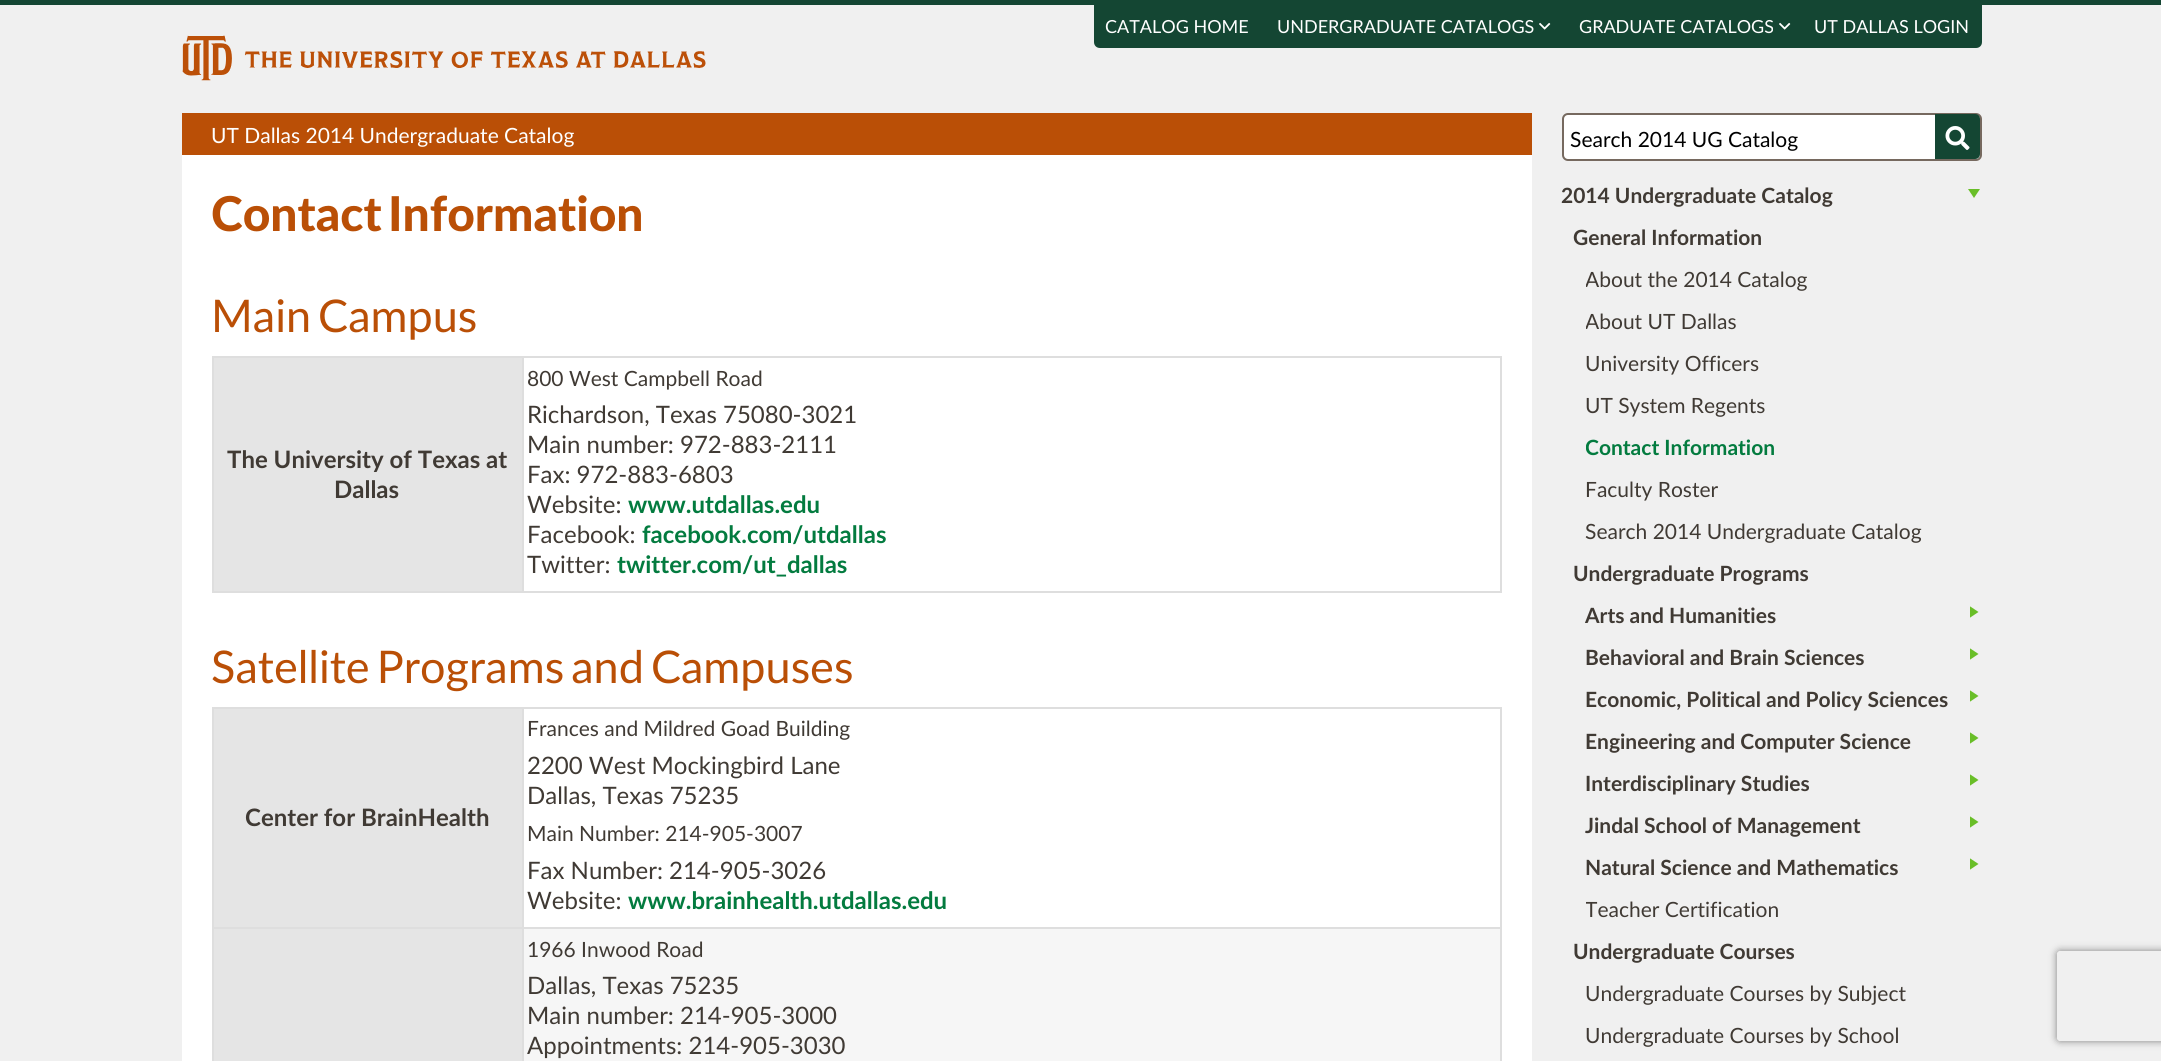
#include <cairo.h>
#include <math.h>
#include <stddef.h>


static void spaced_text(cairo_t *cr, double x, double y, const char *s, double letter, double word) {
    cairo_move_to(cr, x, y);
    while (*s) {
        char ch[5] = {0};
        int n = 0;
        do ch[n++] = *s++; while ((*s & 0xC0) == 0x80);
        cairo_show_text(cr, ch);
        cairo_rel_move_to(cr, letter + word * (*ch == ' '), 0);
    }
}

static void round_rect(cairo_t *cr, double x, double y, double w, double h, double r) {
    cairo_new_sub_path(cr);
    cairo_arc(cr, x + w - r, y + h - r, r, 0, M_PI / 2);
    cairo_arc(cr, x + r, y + h - r, r, M_PI / 2, M_PI);
    cairo_arc(cr, x + r, y + r, r, M_PI, 1.5 * M_PI);
    cairo_arc(cr, x + w - r, y + r, r, 1.5 * M_PI, 2 * M_PI);
    cairo_close_path(cr);
}

static void shadow(cairo_t *cr, double x, double y, double w, double h, double r, double blur, double alpha) {
    cairo_push_group_with_content(cr, CAIRO_CONTENT_ALPHA);
    cairo_set_operator(cr, CAIRO_OPERATOR_SOURCE);
    for (int i = 15; i >= -15 && fmin(w, h) + blur * i / 3 > 0; i -= 2) {
        double e = blur * i / 6;
        cairo_set_source_rgba(cr, 0, 0, 0, alpha * erfc((i - 1) / 8.5) / 2);
        round_rect(cr, x - e, y - e, w + 2 * e, h + 2 * e, fmax(0, fmin(r + e + blur * .6, fmin(w, h) / 2 + e)));
        cairo_fill(cr);
    }
    cairo_pattern_t *soft = cairo_pop_group(cr);
    cairo_mask(cr, soft);
    cairo_pattern_destroy(soft);
}

static void picture(cairo_t *cr, const char *path, double x, double y, double w, double h) {
    cairo_surface_t *image = cairo_image_surface_create_from_png(path);
    cairo_save(cr);
    cairo_set_source_surface(cr, image, x, y);
    cairo_rectangle(cr, x, y, w, h);
    cairo_fill(cr);
    cairo_restore(cr);
    cairo_surface_destroy(image);
}

int main(void) {
    cairo_surface_t *surface = cairo_image_surface_create(CAIRO_FORMAT_RGB24, 2161, 1061);
    cairo_t *cr = cairo_create(surface);
    cairo_font_options_t *options = cairo_font_options_create();
    cairo_font_options_set_hint_metrics(options, CAIRO_HINT_METRICS_OFF);
    cairo_font_options_set_hint_style(options, CAIRO_HINT_STYLE_NONE);
    cairo_set_font_options(cr, options);
    cairo_set_miter_limit(cr, 4);
    cairo_set_source_rgb(cr, 0.941, 0.941, 0.941);
    cairo_paint(cr);
    cairo_set_source_rgb(cr, 0.082, 0.275, 0.2);
    cairo_rectangle(cr, 0, 0, 2161, 5);
    cairo_fill(cr);
    cairo_new_path(cr);
    cairo_move_to(cr, 1094, 5);
    cairo_line_to(cr, 1982, 5);
    cairo_line_to(cr, 1982, 42);
    cairo_curve_to(cr, 1982, 45.5, 1979.5, 48, 1976, 48);
    cairo_line_to(cr, 1100, 48);
    cairo_curve_to(cr, 1096.5, 48, 1094, 45.5, 1094, 42);
    cairo_close_path(cr);
    cairo_fill(cr);
    cairo_select_font_face(cr, "Lato", CAIRO_FONT_SLANT_NORMAL, CAIRO_FONT_WEIGHT_NORMAL);
    cairo_set_font_size(cr, 18);
    cairo_set_source_rgb(cr, 1, 1, 1);
    cairo_move_to(cr, 1105, 33);
    cairo_show_text(cr, "CATALOG HOME");
    cairo_move_to(cr, 1277, 33);
    cairo_show_text(cr, "UNDERGRADUATE CATALOGS");
    picture(cr, "img1.png", 1539, 22, 12, 8);
    cairo_move_to(cr, 1579, 33);
    cairo_show_text(cr, "GRADUATE CATALOGS");
    picture(cr, "img1.png", 1779, 22, 12, 8);
    cairo_move_to(cr, 1814, 33);
    cairo_show_text(cr, "UT DALLAS LOGIN");
    picture(cr, "img2.png", 182, 35, 524, 46);
    cairo_rectangle(cr, 182, 155, 1350, 906);
    cairo_fill(cr);
    cairo_set_source_rgb(cr, 0.729, 0.31, 0.027);
    cairo_rectangle(cr, 182, 113, 1350, 42);
    cairo_fill(cr);
    cairo_set_font_size(cr, 21);
    cairo_set_source_rgb(cr, 1, 1, 1);
    cairo_move_to(cr, 211, 143);
    cairo_show_text(cr, "UT Dallas 2014 Undergraduate Catalog");
    cairo_select_font_face(cr, "Lato Black", CAIRO_FONT_SLANT_NORMAL, CAIRO_FONT_WEIGHT_NORMAL);
    cairo_set_font_size(cr, 48);
    cairo_set_source_rgb(cr, 0.729, 0.31, 0.027);
    spaced_text(cr, 211, 231, "Contact Information", 0, -5);
    cairo_select_font_face(cr, "Lato", CAIRO_FONT_SLANT_NORMAL, CAIRO_FONT_WEIGHT_NORMAL);
    cairo_set_font_size(cr, 45);
    spaced_text(cr, 211, 332, "Main Campus", 0, -4.5);
    cairo_set_source_rgb(cr, 0.898, 0.898, 0.898);
    cairo_rectangle(cr, 214, 358, 308, 233);
    cairo_fill(cr);
    cairo_set_source_rgb(cr, 0.871, 0.871, 0.871);
    cairo_rectangle(cr, 522, 356, 980, 2);
    cairo_fill(cr);
    cairo_rectangle(cr, 1500, 356, 2, 237);
    cairo_fill(cr);
    cairo_rectangle(cr, 522, 591, 980, 2);
    cairo_fill(cr);
    cairo_rectangle(cr, 522, 356, 2, 237);
    cairo_fill(cr);
    cairo_rectangle(cr, 212, 356, 312, 2);
    cairo_fill(cr);
    cairo_rectangle(cr, 212, 591, 312, 2);
    cairo_fill(cr);
    cairo_rectangle(cr, 212, 356, 2, 237);
    cairo_fill(cr);
    cairo_select_font_face(cr, "Lato", CAIRO_FONT_SLANT_NORMAL, CAIRO_FONT_WEIGHT_BOLD);
    cairo_set_font_size(cr, 24);
    cairo_set_source_rgb(cr, 0.251, 0.227, 0.204);
    cairo_move_to(cr, 227, 468);
    cairo_show_text(cr, "The University of Texas at");
    cairo_move_to(cr, 334, 498);
    cairo_show_text(cr, "Dallas");
    cairo_select_font_face(cr, "Lato", CAIRO_FONT_SLANT_NORMAL, CAIRO_FONT_WEIGHT_NORMAL);
    cairo_set_font_size(cr, 21);
    cairo_move_to(cr, 527, 386);
    cairo_show_text(cr, "800 West Campbell Road");
    cairo_set_font_size(cr, 24);
    cairo_move_to(cr, 527, 423);
    cairo_show_text(cr, "Richardson, Texas 75080-3021");
    cairo_move_to(cr, 527, 453);
    cairo_show_text(cr, "Main number: 972-883-2111");
    cairo_move_to(cr, 527, 483);
    cairo_show_text(cr, "Fax: 972-883-6803");
    cairo_move_to(cr, 527, 513);
    cairo_show_text(cr, "Website:");
    cairo_select_font_face(cr, "Lato", CAIRO_FONT_SLANT_NORMAL, CAIRO_FONT_WEIGHT_BOLD);
    cairo_set_source_rgb(cr, 0.012, 0.482, 0.247);
    cairo_move_to(cr, 628, 513);
    cairo_show_text(cr, "www.utdallas.edu");
    cairo_select_font_face(cr, "Lato", CAIRO_FONT_SLANT_NORMAL, CAIRO_FONT_WEIGHT_NORMAL);
    cairo_set_source_rgb(cr, 0.251, 0.227, 0.204);
    cairo_move_to(cr, 527, 543);
    cairo_show_text(cr, "Facebook:");
    cairo_select_font_face(cr, "Lato", CAIRO_FONT_SLANT_NORMAL, CAIRO_FONT_WEIGHT_BOLD);
    cairo_set_source_rgb(cr, 0.012, 0.482, 0.247);
    cairo_move_to(cr, 642, 543);
    cairo_show_text(cr, "facebook.com/utdallas");
    cairo_select_font_face(cr, "Lato", CAIRO_FONT_SLANT_NORMAL, CAIRO_FONT_WEIGHT_NORMAL);
    cairo_set_source_rgb(cr, 0.251, 0.227, 0.204);
    cairo_move_to(cr, 527, 573);
    cairo_show_text(cr, "Twitter:");
    cairo_select_font_face(cr, "Lato", CAIRO_FONT_SLANT_NORMAL, CAIRO_FONT_WEIGHT_BOLD);
    cairo_set_source_rgb(cr, 0.012, 0.482, 0.247);
    cairo_move_to(cr, 617, 573);
    cairo_show_text(cr, "twitter.com/ut_dallas");
    cairo_select_font_face(cr, "Lato", CAIRO_FONT_SLANT_NORMAL, CAIRO_FONT_WEIGHT_NORMAL);
    cairo_set_font_size(cr, 45);
    cairo_set_source_rgb(cr, 0.729, 0.31, 0.027);
    spaced_text(cr, 211, 683, "Satellite Programs and Campuses", 0, -4.5);
    cairo_set_source_rgb(cr, 0.898, 0.898, 0.898);
    cairo_rectangle(cr, 214, 709, 308, 218);
    cairo_fill(cr);
    cairo_set_source_rgb(cr, 0.871, 0.871, 0.871);
    cairo_rectangle(cr, 522, 707, 980, 2);
    cairo_fill(cr);
    cairo_rectangle(cr, 522, 927, 980, 2);
    cairo_fill(cr);
    cairo_rectangle(cr, 522, 927, 2, 134);
    cairo_fill(cr);
    cairo_rectangle(cr, 212, 927, 312, 2);
    cairo_fill(cr);
    cairo_rectangle(cr, 522, 707, 2, 222);
    cairo_fill(cr);
    cairo_rectangle(cr, 212, 707, 312, 2);
    cairo_fill(cr);
    cairo_rectangle(cr, 212, 927, 2, 134);
    cairo_fill(cr);
    cairo_rectangle(cr, 212, 707, 2, 222);
    cairo_fill(cr);
    cairo_select_font_face(cr, "Lato", CAIRO_FONT_SLANT_NORMAL, CAIRO_FONT_WEIGHT_BOLD);
    cairo_set_font_size(cr, 24);
    cairo_set_source_rgb(cr, 0.251, 0.227, 0.204);
    cairo_move_to(cr, 245, 826);
    cairo_show_text(cr, "Center for BrainHealth");
    cairo_set_source_rgb(cr, 0.871, 0.871, 0.871);
    cairo_rectangle(cr, 1500, 927, 2, 134);
    cairo_fill(cr);
    cairo_rectangle(cr, 1500, 707, 2, 222);
    cairo_fill(cr);
    cairo_select_font_face(cr, "Lato", CAIRO_FONT_SLANT_NORMAL, CAIRO_FONT_WEIGHT_NORMAL);
    cairo_set_font_size(cr, 21);
    cairo_set_source_rgb(cr, 0.251, 0.227, 0.204);
    cairo_move_to(cr, 527, 736);
    cairo_show_text(cr, "Frances and Mildred Goad Building");
    cairo_set_font_size(cr, 24);
    cairo_move_to(cr, 527, 774);
    cairo_show_text(cr, "2200 West Mockingbird Lane");
    cairo_move_to(cr, 527, 804);
    cairo_show_text(cr, "Dallas, Texas 75235");
    cairo_set_font_size(cr, 21);
    cairo_move_to(cr, 527, 841);
    cairo_show_text(cr, "Main Number: 214-905-3007");
    cairo_set_font_size(cr, 24);
    cairo_move_to(cr, 527, 879);
    cairo_show_text(cr, "Fax Number: 214-905-3026");
    cairo_move_to(cr, 527, 909);
    cairo_show_text(cr, "Website:");
    cairo_select_font_face(cr, "Lato", CAIRO_FONT_SLANT_NORMAL, CAIRO_FONT_WEIGHT_BOLD);
    cairo_set_source_rgb(cr, 0.012, 0.482, 0.247);
    cairo_move_to(cr, 628, 909);
    cairo_show_text(cr, "www.brainhealth.utdallas.edu");
    cairo_set_source_rgb(cr, 0.961, 0.961, 0.961);
    cairo_rectangle(cr, 524, 929, 976, 132);
    cairo_fill(cr);
    cairo_set_source_rgb(cr, 0.898, 0.898, 0.898);
    cairo_rectangle(cr, 214, 929, 308, 132);
    cairo_fill(cr);
    cairo_select_font_face(cr, "Lato", CAIRO_FONT_SLANT_NORMAL, CAIRO_FONT_WEIGHT_NORMAL);
    cairo_set_font_size(cr, 21);
    cairo_set_source_rgb(cr, 0.251, 0.227, 0.204);
    cairo_move_to(cr, 527, 957);
    cairo_show_text(cr, "1966 Inwood Road");
    cairo_set_font_size(cr, 24);
    cairo_move_to(cr, 527, 994);
    cairo_show_text(cr, "Dallas, Texas 75235");
    cairo_move_to(cr, 527, 1024);
    cairo_show_text(cr, "Main number: 214-905-3000");
    cairo_move_to(cr, 527, 1054);
    cairo_show_text(cr, "Appointments: 214-905-3030");
    cairo_set_source_rgb(cr, 1, 1, 1);
    round_rect(cr, 1563, 114, 418, 46, 5);
    cairo_fill_preserve(cr);
    cairo_set_source_rgb(cr, 0.463, 0.412, 0.373);
    cairo_stroke(cr);
    cairo_set_font_size(cr, 21);
    cairo_set_source_rgb(cr, 0, 0, 0);
    cairo_move_to(cr, 1570, 147);
    cairo_show_text(cr, "Search 2014 UG Catalog");
    cairo_set_source_rgb(cr, 0.082, 0.275, 0.2);
    cairo_new_path(cr);
    cairo_move_to(cr, 1935, 114);
    cairo_line_to(cr, 1975, 114);
    cairo_curve_to(cr, 1978, 114, 1980, 116, 1980, 119);
    cairo_line_to(cr, 1980, 154);
    cairo_curve_to(cr, 1980, 157, 1978, 159, 1975, 159);
    cairo_line_to(cr, 1935, 159);
    cairo_close_path(cr);
    cairo_fill(cr);
    picture(cr, "img3.png", 1945, 126, 25, 24);
    cairo_set_source_rgb(cr, 0.412, 0.745, 0.157);
    cairo_new_path(cr);
    cairo_move_to(cr, 1980, 189);
    cairo_line_to(cr, 1974, 198);
    cairo_line_to(cr, 1968, 189);
    cairo_close_path(cr);
    cairo_fill(cr);
    cairo_select_font_face(cr, "Lato", CAIRO_FONT_SLANT_NORMAL, CAIRO_FONT_WEIGHT_BOLD);
    cairo_set_source_rgb(cr, 0.251, 0.227, 0.204);
    cairo_move_to(cr, 1561, 203);
    cairo_show_text(cr, "2014 Undergraduate Catalog");
    cairo_move_to(cr, 1573, 245);
    cairo_show_text(cr, "General Information");
    cairo_save(cr);
    cairo_rectangle(cr, 1586, 257, 396, 42);
    cairo_clip(cr);
    cairo_select_font_face(cr, "Lato", CAIRO_FONT_SLANT_NORMAL, CAIRO_FONT_WEIGHT_NORMAL);
    cairo_move_to(cr, 1585, 287);
    cairo_show_text(cr, "About the 2014 Catalog");
    cairo_restore(cr);
    cairo_save(cr);
    cairo_rectangle(cr, 1586, 299, 396, 42);
    cairo_clip(cr);
    cairo_select_font_face(cr, "Lato", CAIRO_FONT_SLANT_NORMAL, CAIRO_FONT_WEIGHT_NORMAL);
    cairo_move_to(cr, 1585, 329);
    cairo_show_text(cr, "About UT Dallas");
    cairo_restore(cr);
    cairo_select_font_face(cr, "Lato", CAIRO_FONT_SLANT_NORMAL, CAIRO_FONT_WEIGHT_NORMAL);
    cairo_move_to(cr, 1585, 371);
    cairo_show_text(cr, "University Officers");
    cairo_move_to(cr, 1585, 413);
    cairo_show_text(cr, "UT System Regents");
    cairo_save(cr);
    cairo_rectangle(cr, 1586, 425, 396, 42);
    cairo_clip(cr);
    cairo_select_font_face(cr, "Lato", CAIRO_FONT_SLANT_NORMAL, CAIRO_FONT_WEIGHT_BOLD);
    cairo_set_source_rgb(cr, 0.012, 0.482, 0.247);
    cairo_move_to(cr, 1585, 455);
    cairo_show_text(cr, "Contact Information");
    cairo_restore(cr);
    cairo_move_to(cr, 1585, 497);
    cairo_show_text(cr, "Faculty Roster");
    cairo_move_to(cr, 1585, 539);
    cairo_show_text(cr, "Search 2014 Undergraduate Catalog");
    cairo_select_font_face(cr, "Lato", CAIRO_FONT_SLANT_NORMAL, CAIRO_FONT_WEIGHT_BOLD);
    cairo_move_to(cr, 1573, 581);
    cairo_show_text(cr, "Undergraduate Programs");
    cairo_save(cr);
    cairo_rectangle(cr, 1970, 606, 12, 15);
    cairo_clip(cr);
    cairo_set_source_rgb(cr, 0.412, 0.745, 0.157);
    cairo_new_path(cr);
    cairo_move_to(cr, 1969.5, 606);
    cairo_line_to(cr, 1978.5, 612);
    cairo_line_to(cr, 1969.5, 618);
    cairo_close_path(cr);
    cairo_fill(cr);
    cairo_restore(cr);
    cairo_move_to(cr, 1585, 623);
    cairo_show_text(cr, "Arts and Humanities");
    cairo_save(cr);
    cairo_rectangle(cr, 1970, 648, 12, 15);
    cairo_clip(cr);
    cairo_set_source_rgb(cr, 0.412, 0.745, 0.157);
    cairo_new_path(cr);
    cairo_move_to(cr, 1969.5, 648);
    cairo_line_to(cr, 1978.5, 654);
    cairo_line_to(cr, 1969.5, 660);
    cairo_close_path(cr);
    cairo_fill(cr);
    cairo_restore(cr);
    cairo_move_to(cr, 1585, 665);
    cairo_show_text(cr, "Behavioral and Brain Sciences");
    cairo_save(cr);
    cairo_rectangle(cr, 1970, 690, 12, 15);
    cairo_clip(cr);
    cairo_set_source_rgb(cr, 0.412, 0.745, 0.157);
    cairo_new_path(cr);
    cairo_move_to(cr, 1969.5, 690);
    cairo_line_to(cr, 1978.5, 696);
    cairo_line_to(cr, 1969.5, 702);
    cairo_close_path(cr);
    cairo_fill(cr);
    cairo_restore(cr);
    cairo_move_to(cr, 1585, 707);
    cairo_show_text(cr, "Economic, Political and Policy Sciences");
    cairo_save(cr);
    cairo_rectangle(cr, 1970, 732, 12, 15);
    cairo_clip(cr);
    cairo_set_source_rgb(cr, 0.412, 0.745, 0.157);
    cairo_new_path(cr);
    cairo_move_to(cr, 1969.5, 732);
    cairo_line_to(cr, 1978.5, 738);
    cairo_line_to(cr, 1969.5, 744);
    cairo_close_path(cr);
    cairo_fill(cr);
    cairo_restore(cr);
    cairo_move_to(cr, 1585, 749);
    cairo_show_text(cr, "Engineering and Computer Science");
    cairo_save(cr);
    cairo_rectangle(cr, 1970, 774, 12, 15);
    cairo_clip(cr);
    cairo_set_source_rgb(cr, 0.412, 0.745, 0.157);
    cairo_new_path(cr);
    cairo_move_to(cr, 1969.5, 774);
    cairo_line_to(cr, 1978.5, 780);
    cairo_line_to(cr, 1969.5, 786);
    cairo_close_path(cr);
    cairo_fill(cr);
    cairo_restore(cr);
    cairo_move_to(cr, 1585, 791);
    cairo_show_text(cr, "Interdisciplinary Studies");
    cairo_save(cr);
    cairo_rectangle(cr, 1970, 816, 12, 15);
    cairo_clip(cr);
    cairo_set_source_rgb(cr, 0.412, 0.745, 0.157);
    cairo_new_path(cr);
    cairo_move_to(cr, 1969.5, 816);
    cairo_line_to(cr, 1978.5, 822);
    cairo_line_to(cr, 1969.5, 828);
    cairo_close_path(cr);
    cairo_fill(cr);
    cairo_restore(cr);
    cairo_move_to(cr, 1585, 833);
    cairo_show_text(cr, "Jindal School of Management");
    cairo_save(cr);
    cairo_rectangle(cr, 1970, 858, 12, 15);
    cairo_clip(cr);
    cairo_set_source_rgb(cr, 0.412, 0.745, 0.157);
    cairo_new_path(cr);
    cairo_move_to(cr, 1969.5, 858);
    cairo_line_to(cr, 1978.5, 864);
    cairo_line_to(cr, 1969.5, 870);
    cairo_close_path(cr);
    cairo_fill(cr);
    cairo_restore(cr);
    cairo_move_to(cr, 1585, 875);
    cairo_show_text(cr, "Natural Science and Mathematics");
    cairo_save(cr);
    cairo_rectangle(cr, 1586, 887, 396, 42);
    cairo_clip(cr);
    cairo_select_font_face(cr, "Lato", CAIRO_FONT_SLANT_NORMAL, CAIRO_FONT_WEIGHT_NORMAL);
    cairo_move_to(cr, 1585, 917);
    cairo_show_text(cr, "Teacher Certification");
    cairo_restore(cr);
    cairo_move_to(cr, 1573, 959);
    cairo_show_text(cr, "Undergraduate Courses");
    cairo_select_font_face(cr, "Lato", CAIRO_FONT_SLANT_NORMAL, CAIRO_FONT_WEIGHT_NORMAL);
    cairo_move_to(cr, 1585, 1001);
    cairo_show_text(cr, "Undergraduate Courses by Subject");
    cairo_move_to(cr, 1585, 1043);
    cairo_show_text(cr, "Undergraduate Courses by School");
    cairo_save(cr);
    cairo_set_fill_rule(cr, CAIRO_FILL_RULE_EVEN_ODD);
    cairo_new_path(cr);
    cairo_move_to(cr, 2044, 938);
    cairo_line_to(cr, 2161, 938);
    cairo_line_to(cr, 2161, 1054);
    cairo_line_to(cr, 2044, 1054);
    cairo_close_path(cr);
    cairo_move_to(cr, 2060, 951);
    cairo_line_to(cr, 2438, 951);
    cairo_curve_to(cr, 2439.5, 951, 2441, 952.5, 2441, 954);
    cairo_line_to(cr, 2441, 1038);
    cairo_curve_to(cr, 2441, 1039.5, 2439.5, 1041, 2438, 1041);
    cairo_line_to(cr, 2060, 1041);
    cairo_curve_to(cr, 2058.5, 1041, 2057, 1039.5, 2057, 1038);
    cairo_line_to(cr, 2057, 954);
    cairo_curve_to(cr, 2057, 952.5, 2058.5, 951, 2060, 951);
    cairo_close_path(cr);
    cairo_clip(cr);
    cairo_set_source_rgb(cr, 0.502, 0.502, 0.502);
    shadow(cr, 2057, 951, 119, 90, 3, 4, 1);
    cairo_restore(cr);
    cairo_surface_write_to_png(surface, "page.png");
    cairo_font_options_destroy(options);
    cairo_destroy(cr);
    cairo_surface_destroy(surface);
    return 0;
}
